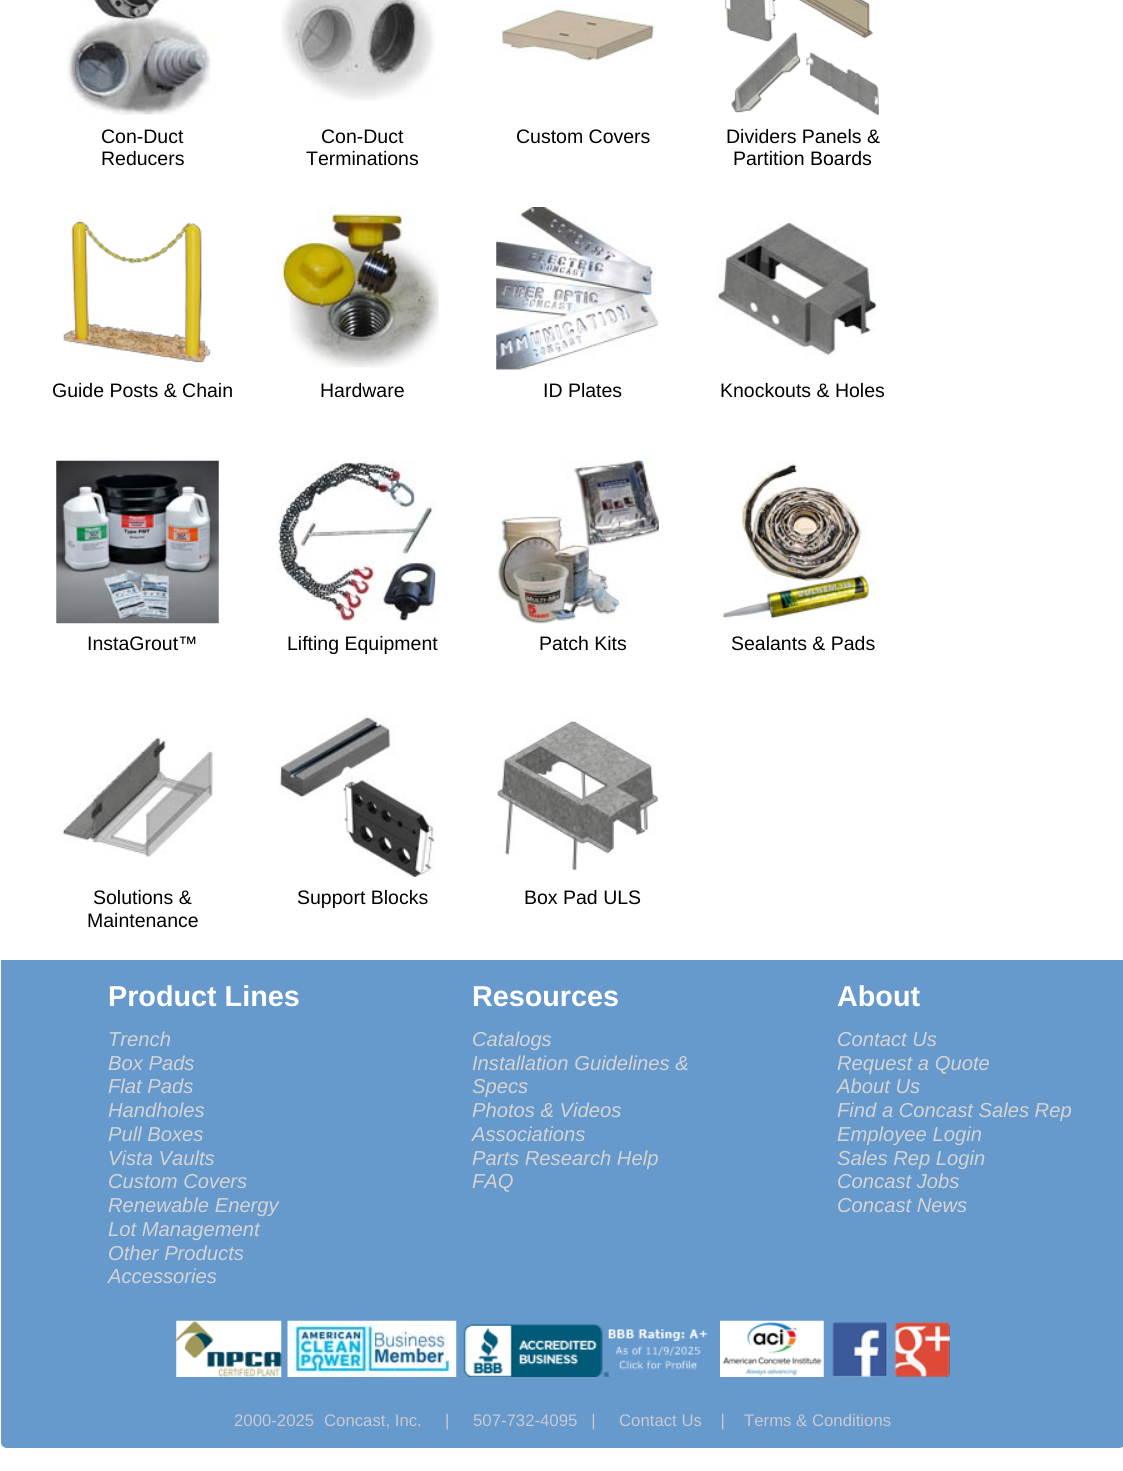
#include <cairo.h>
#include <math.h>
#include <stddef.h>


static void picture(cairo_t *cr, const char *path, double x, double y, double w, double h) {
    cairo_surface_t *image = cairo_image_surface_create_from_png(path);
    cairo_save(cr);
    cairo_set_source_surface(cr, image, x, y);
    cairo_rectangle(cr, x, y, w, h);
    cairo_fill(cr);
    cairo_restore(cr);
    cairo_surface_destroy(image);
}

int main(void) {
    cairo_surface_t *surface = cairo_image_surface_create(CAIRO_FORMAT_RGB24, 1123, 1471);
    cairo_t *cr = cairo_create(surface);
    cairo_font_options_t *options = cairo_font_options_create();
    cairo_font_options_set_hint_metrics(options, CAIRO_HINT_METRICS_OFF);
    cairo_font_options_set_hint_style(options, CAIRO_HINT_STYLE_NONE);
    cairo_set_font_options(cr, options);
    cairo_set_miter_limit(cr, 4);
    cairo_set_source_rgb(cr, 1, 1, 1);
    cairo_paint(cr);
    picture(cr, "img1.png", 66, 0, 150, 115);
    cairo_select_font_face(cr, "Liberation Sans", CAIRO_FONT_SLANT_NORMAL, CAIRO_FONT_WEIGHT_NORMAL);
    cairo_set_font_size(cr, 19.5);
    cairo_set_source_rgb(cr, 0, 0, 0);
    cairo_move_to(cr, 101, 143);
    cairo_show_text(cr, "Con-Duct");
    cairo_move_to(cr, 101, 165);
    cairo_show_text(cr, "Reducers");
    picture(cr, "img2.png", 281, 0, 154, 101);
    cairo_move_to(cr, 321, 143);
    cairo_show_text(cr, "Con-Duct");
    cairo_move_to(cr, 306, 165);
    cairo_show_text(cr, "Terminations");
    picture(cr, "img3.png", 496, 3, 160, 60);
    cairo_move_to(cr, 516, 143);
    cairo_show_text(cr, "Custom Covers");
    picture(cr, "img4.png", 724, 0, 155, 116);
    cairo_move_to(cr, 726, 143);
    cairo_show_text(cr, "Dividers Panels &");
    cairo_move_to(cr, 733, 165);
    cairo_show_text(cr, "Partition Boards");
    picture(cr, "img5.png", 62, 217, 149, 146);
    cairo_move_to(cr, 52, 397);
    cairo_show_text(cr, "Guide Posts & Chain");
    picture(cr, "img6.png", 276, 207, 163, 161);
    cairo_move_to(cr, 320, 397);
    cairo_show_text(cr, "Hardware");
    picture(cr, "img7.png", 496, 207, 163, 163);
    cairo_move_to(cr, 543, 397);
    cairo_show_text(cr, "ID Plates");
    picture(cr, "img8.png", 716, 218, 161, 139);
    cairo_move_to(cr, 720, 397);
    cairo_show_text(cr, "Knockouts & Holes");
    picture(cr, "img9.png", 56, 460, 163, 164);
    cairo_move_to(cr, 87, 650);
    cairo_show_text(cr, "InstaGrout™");
    picture(cr, "img10.png", 276, 461, 161, 161);
    cairo_move_to(cr, 287, 650);
    cairo_show_text(cr, "Lifting Equipment");
    picture(cr, "img11.png", 496, 460, 163, 164);
    cairo_move_to(cr, 539, 650);
    cairo_show_text(cr, "Patch Kits");
    picture(cr, "img12.png", 719, 461, 157, 160);
    cairo_move_to(cr, 731, 650);
    cairo_show_text(cr, "Sealants & Pads");
    picture(cr, "img13.png", 59, 735, 157, 122);
    cairo_move_to(cr, 93, 904);
    cairo_show_text(cr, "Solutions &");
    cairo_move_to(cr, 87, 927);
    cairo_show_text(cr, "Maintenance");
    picture(cr, "img14.png", 278, 714, 158, 163);
    cairo_move_to(cr, 297, 904);
    cairo_show_text(cr, "Support Blocks");
    picture(cr, "img15.png", 497, 717, 162, 154);
    cairo_move_to(cr, 524, 904);
    cairo_show_text(cr, "Box Pad ULS");
    cairo_set_source_rgb(cr, 0.4, 0.6, 0.8);
    cairo_new_path(cr);
    cairo_move_to(cr, 1, 960);
    cairo_line_to(cr, 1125, 960);
    cairo_line_to(cr, 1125, 1442);
    cairo_curve_to(cr, 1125, 1445.5, 1122.5, 1448, 1119, 1448);
    cairo_line_to(cr, 7, 1448);
    cairo_curve_to(cr, 3.5, 1448, 1, 1445.5, 1, 1442);
    cairo_close_path(cr);
    cairo_fill(cr);
    cairo_select_font_face(cr, "Liberation Sans", CAIRO_FONT_SLANT_NORMAL, CAIRO_FONT_WEIGHT_BOLD);
    cairo_set_font_size(cr, 28.75);
    cairo_set_source_rgb(cr, 1, 1, 1);
    cairo_move_to(cr, 108, 1006);
    cairo_show_text(cr, "Product Lines");
    cairo_select_font_face(cr, "Liberation Sans", CAIRO_FONT_SLANT_ITALIC, CAIRO_FONT_WEIGHT_NORMAL);
    cairo_set_font_size(cr, 20.2);
    cairo_set_source_rgb(cr, 0.831, 0.831, 0.831);
    cairo_move_to(cr, 108, 1046);
    cairo_show_text(cr, "Trench");
    cairo_move_to(cr, 108, 1070);
    cairo_show_text(cr, "Box Pads");
    cairo_move_to(cr, 108, 1093);
    cairo_show_text(cr, "Flat Pads");
    cairo_move_to(cr, 108, 1117);
    cairo_show_text(cr, "Handholes");
    cairo_move_to(cr, 108, 1141);
    cairo_show_text(cr, "Pull Boxes");
    cairo_move_to(cr, 108, 1165);
    cairo_show_text(cr, "Vista Vaults");
    cairo_move_to(cr, 108, 1188);
    cairo_show_text(cr, "Custom Covers");
    cairo_move_to(cr, 108, 1212);
    cairo_show_text(cr, "Renewable Energy");
    cairo_move_to(cr, 108, 1236);
    cairo_show_text(cr, "Lot Management");
    cairo_move_to(cr, 108, 1260);
    cairo_show_text(cr, "Other Products");
    cairo_move_to(cr, 108, 1283);
    cairo_show_text(cr, "Accessories");
    cairo_select_font_face(cr, "Liberation Sans", CAIRO_FONT_SLANT_NORMAL, CAIRO_FONT_WEIGHT_BOLD);
    cairo_set_font_size(cr, 28.75);
    cairo_set_source_rgb(cr, 1, 1, 1);
    cairo_move_to(cr, 472, 1006);
    cairo_show_text(cr, "Resources");
    cairo_select_font_face(cr, "Liberation Sans", CAIRO_FONT_SLANT_ITALIC, CAIRO_FONT_WEIGHT_NORMAL);
    cairo_set_font_size(cr, 20.2);
    cairo_set_source_rgb(cr, 0.831, 0.831, 0.831);
    cairo_move_to(cr, 472, 1046);
    cairo_show_text(cr, "Catalogs");
    cairo_move_to(cr, 472, 1070);
    cairo_show_text(cr, "Installation Guidelines &");
    cairo_move_to(cr, 472, 1093);
    cairo_show_text(cr, "Specs");
    cairo_move_to(cr, 472, 1117);
    cairo_show_text(cr, "Photos & Videos");
    cairo_move_to(cr, 472, 1141);
    cairo_show_text(cr, "Associations");
    cairo_move_to(cr, 472, 1165);
    cairo_show_text(cr, "Parts Research Help");
    cairo_move_to(cr, 472, 1188);
    cairo_show_text(cr, "FAQ");
    cairo_select_font_face(cr, "Liberation Sans", CAIRO_FONT_SLANT_NORMAL, CAIRO_FONT_WEIGHT_BOLD);
    cairo_set_font_size(cr, 28.75);
    cairo_set_source_rgb(cr, 1, 1, 1);
    cairo_move_to(cr, 837, 1006);
    cairo_show_text(cr, "About");
    cairo_select_font_face(cr, "Liberation Sans", CAIRO_FONT_SLANT_ITALIC, CAIRO_FONT_WEIGHT_NORMAL);
    cairo_set_font_size(cr, 20.2);
    cairo_set_source_rgb(cr, 0.831, 0.831, 0.831);
    cairo_move_to(cr, 837, 1046);
    cairo_show_text(cr, "Contact Us");
    cairo_move_to(cr, 837, 1070);
    cairo_show_text(cr, "Request a Quote");
    cairo_move_to(cr, 837, 1093);
    cairo_show_text(cr, "About Us");
    cairo_move_to(cr, 837, 1117);
    cairo_show_text(cr, "Find a Concast Sales Rep");
    cairo_move_to(cr, 837, 1141);
    cairo_show_text(cr, "Employee Login");
    cairo_move_to(cr, 837, 1165);
    cairo_show_text(cr, "Sales Rep Login");
    cairo_move_to(cr, 837, 1188);
    cairo_show_text(cr, "Concast Jobs");
    cairo_move_to(cr, 837, 1212);
    cairo_show_text(cr, "Concast News");
    picture(cr, "img16.png", 176, 1320, 106, 57);
    picture(cr, "img17.png", 287, 1320, 170, 57);
    picture(cr, "img18.png", 463, 1324, 245, 53);
    picture(cr, "img19.png", 720, 1320, 104, 57);
    picture(cr, "img20.png", 832, 1322, 56, 55);
    picture(cr, "img21.png", 894, 1321, 56, 56);
    cairo_select_font_face(cr, "Liberation Sans", CAIRO_FONT_SLANT_NORMAL, CAIRO_FONT_WEIGHT_NORMAL);
    cairo_set_font_size(cr, 16.75);
    cairo_set_source_rgb(cr, 0.784, 0.788, 0.827);
    cairo_move_to(cr, 234, 1426);
    cairo_show_text(cr, "2000-2025");
    cairo_move_to(cr, 324, 1426);
    cairo_show_text(cr, "Concast, Inc.     |");
    cairo_move_to(cr, 473, 1426);
    cairo_show_text(cr, "507-732-4095   |");
    cairo_move_to(cr, 619, 1426);
    cairo_show_text(cr, "Contact Us    |");
    cairo_move_to(cr, 744, 1426);
    cairo_show_text(cr, "Terms & Conditions");
    cairo_surface_write_to_png(surface, "page.png");
    cairo_font_options_destroy(options);
    cairo_destroy(cr);
    cairo_surface_destroy(surface);
    return 0;
}
